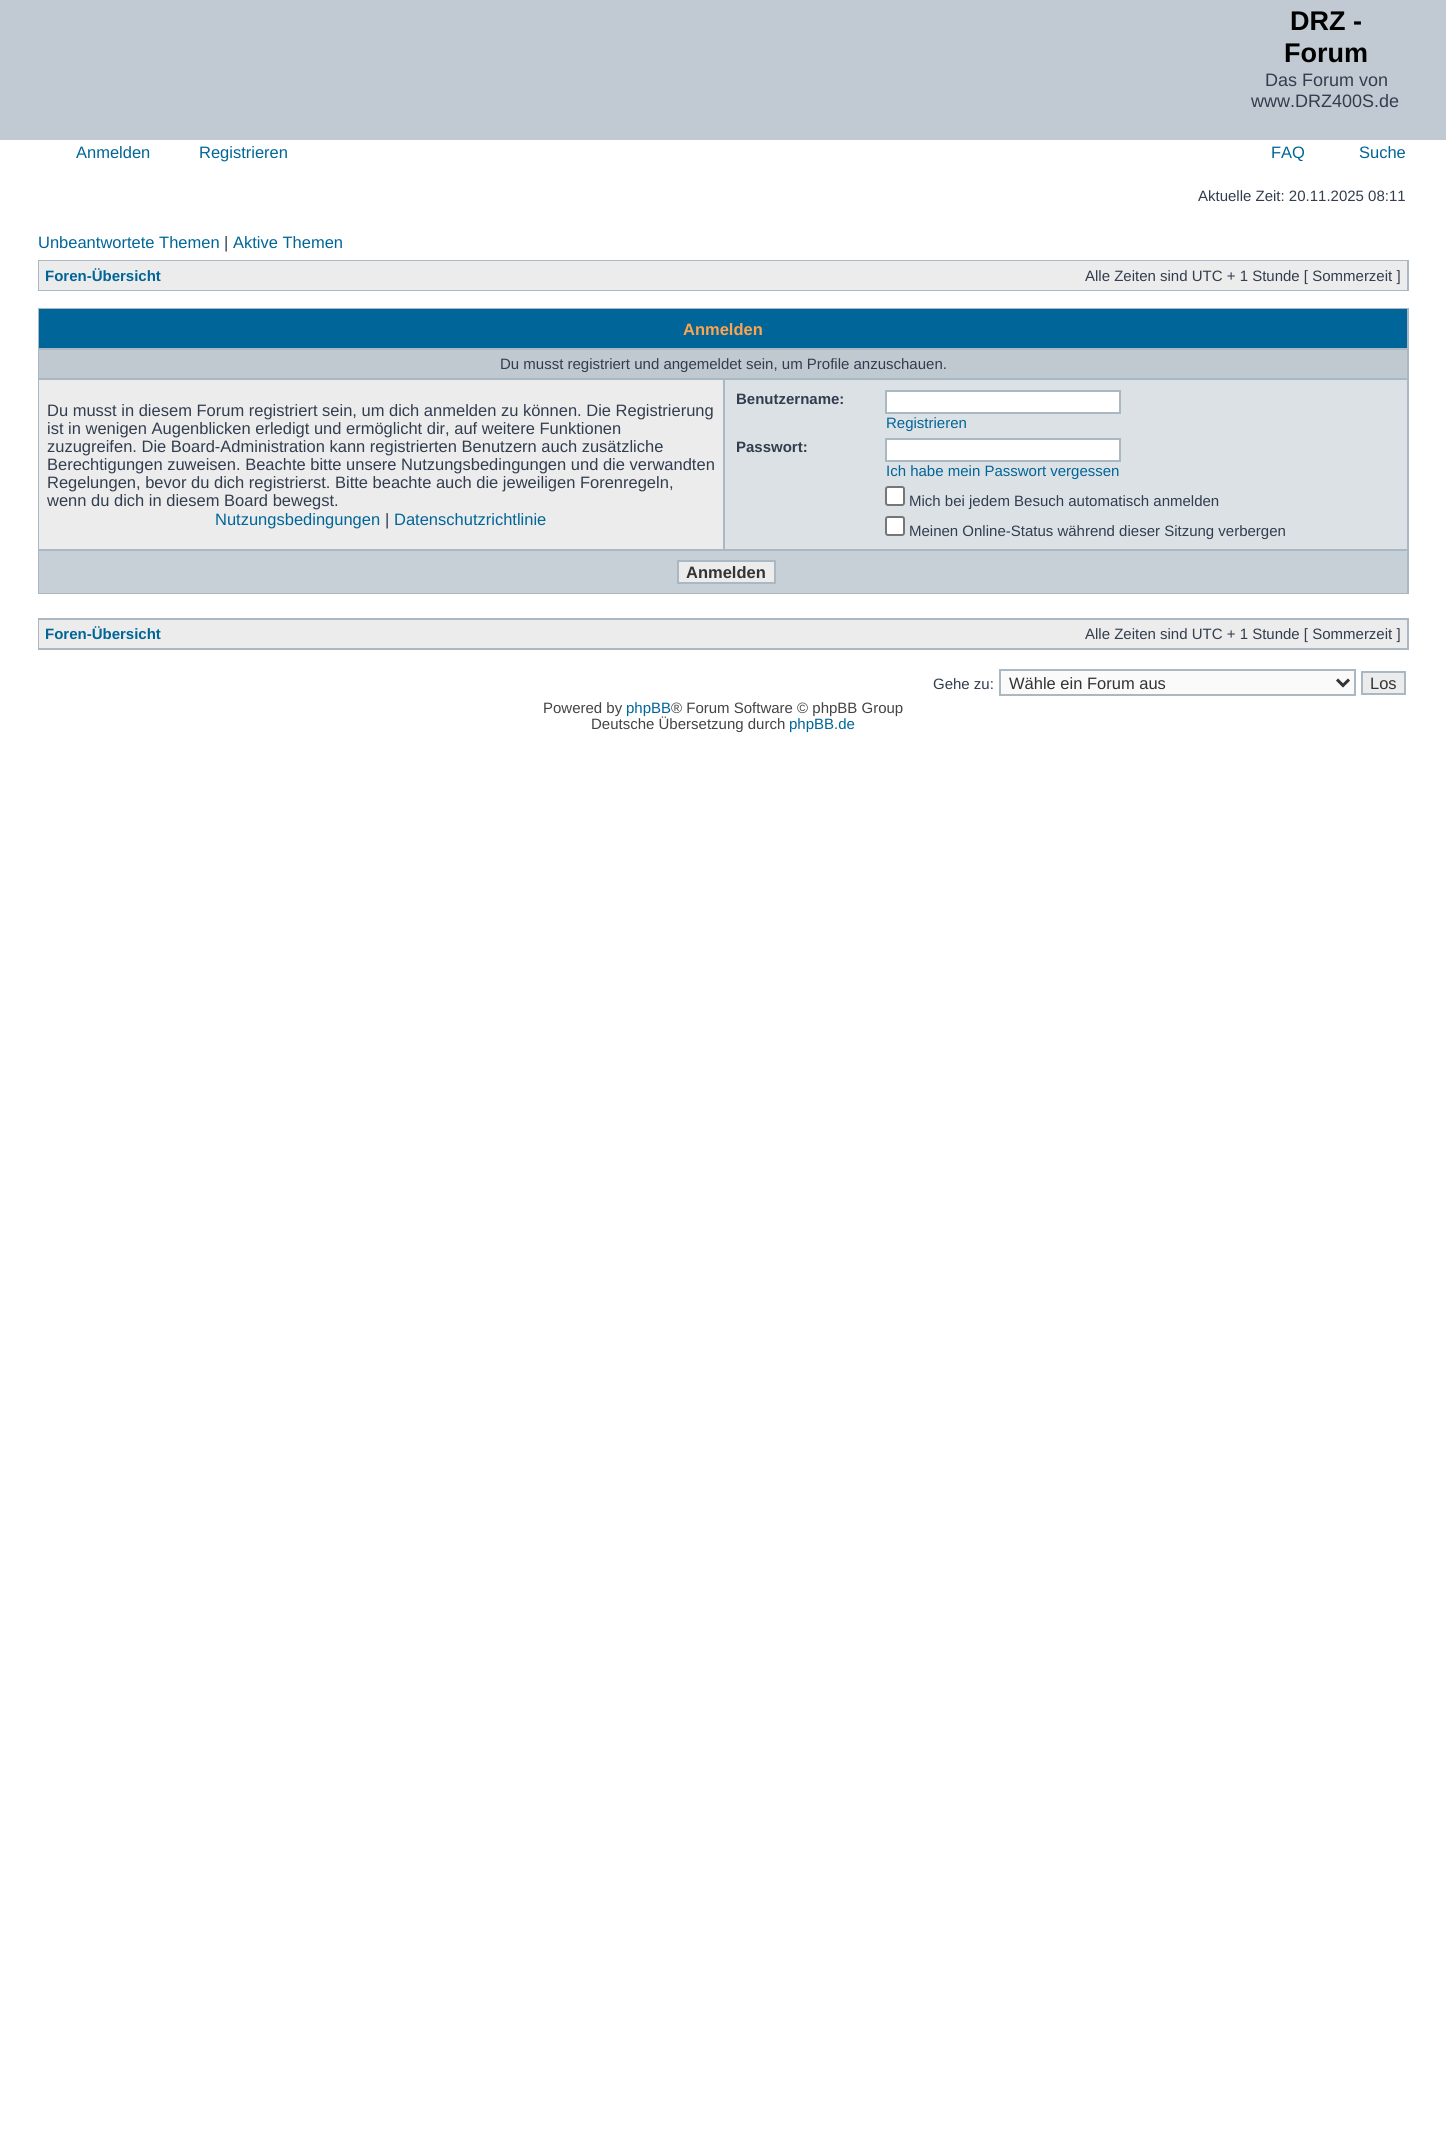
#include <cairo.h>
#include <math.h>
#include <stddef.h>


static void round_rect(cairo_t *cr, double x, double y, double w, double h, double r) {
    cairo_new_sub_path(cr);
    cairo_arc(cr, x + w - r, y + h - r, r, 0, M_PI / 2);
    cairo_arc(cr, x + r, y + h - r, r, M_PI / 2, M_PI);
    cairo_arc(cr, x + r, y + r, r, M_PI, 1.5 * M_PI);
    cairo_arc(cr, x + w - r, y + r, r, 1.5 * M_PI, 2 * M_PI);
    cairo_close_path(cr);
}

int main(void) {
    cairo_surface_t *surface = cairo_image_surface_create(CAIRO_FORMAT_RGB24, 1446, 2133);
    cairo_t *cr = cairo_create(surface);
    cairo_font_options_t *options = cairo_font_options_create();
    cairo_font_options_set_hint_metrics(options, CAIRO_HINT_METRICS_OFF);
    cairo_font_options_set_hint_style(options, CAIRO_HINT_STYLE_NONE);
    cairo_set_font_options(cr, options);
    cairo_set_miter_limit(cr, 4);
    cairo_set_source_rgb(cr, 1, 1, 1);
    cairo_paint(cr);
    cairo_set_source_rgb(cr, 0.757, 0.792, 0.824);
    cairo_rectangle(cr, 0, 0, 1446, 140);
    cairo_fill(cr);
    cairo_select_font_face(cr, "Liberation Sans", CAIRO_FONT_SLANT_NORMAL, CAIRO_FONT_WEIGHT_BOLD);
    cairo_set_font_size(cr, 27);
    cairo_set_source_rgb(cr, 0, 0, 0);
    cairo_move_to(cr, 1290, 30);
    cairo_show_text(cr, "DRZ -");
    cairo_move_to(cr, 1284, 62);
    cairo_show_text(cr, "Forum");
    cairo_select_font_face(cr, "Liberation Sans", CAIRO_FONT_SLANT_NORMAL, CAIRO_FONT_WEIGHT_NORMAL);
    cairo_set_font_size(cr, 18);
    cairo_set_source_rgb(cr, 0.196, 0.239, 0.31);
    cairo_move_to(cr, 1265, 86);
    cairo_show_text(cr, "Das Forum von");
    cairo_move_to(cr, 1251, 107);
    cairo_show_text(cr, "www.DRZ400S.de");
    cairo_set_font_size(cr, 16.5);
    cairo_set_source_rgb(cr, 0, 0.396, 0.592);
    cairo_move_to(cr, 76, 158);
    cairo_show_text(cr, "Anmelden");
    cairo_move_to(cr, 199, 158);
    cairo_show_text(cr, "Registrieren");
    cairo_move_to(cr, 1271, 158);
    cairo_show_text(cr, "FAQ");
    cairo_move_to(cr, 1359, 158);
    cairo_show_text(cr, "Suche");
    cairo_set_font_size(cr, 15);
    cairo_set_source_rgb(cr, 0.196, 0.239, 0.31);
    cairo_move_to(cr, 1198, 201);
    cairo_show_text(cr, "Aktuelle Zeit: 20.11.2025 08:11");
    cairo_set_font_size(cr, 16.5);
    cairo_set_source_rgb(cr, 0, 0.396, 0.592);
    cairo_move_to(cr, 38, 248);
    cairo_show_text(cr, "Unbeantwortete Themen");
    cairo_set_source_rgb(cr, 0.196, 0.239, 0.31);
    cairo_move_to(cr, 224, 248);
    cairo_show_text(cr, "|");
    cairo_set_source_rgb(cr, 0, 0.396, 0.592);
    cairo_move_to(cr, 233, 248);
    cairo_show_text(cr, "Aktive Themen");
    cairo_set_source_rgb(cr, 0.663, 0.722, 0.761);
    cairo_rectangle(cr, 38, 260, 1371, 31);
    cairo_fill(cr);
    cairo_set_source_rgb(cr, 0.925, 0.925, 0.925);
    cairo_rectangle(cr, 39, 261, 1368, 29);
    cairo_fill(cr);
    cairo_select_font_face(cr, "Liberation Sans", CAIRO_FONT_SLANT_NORMAL, CAIRO_FONT_WEIGHT_BOLD);
    cairo_set_font_size(cr, 15);
    cairo_set_source_rgb(cr, 0, 0.396, 0.592);
    cairo_move_to(cr, 45, 281);
    cairo_show_text(cr, "Foren-Übersicht");
    cairo_select_font_face(cr, "Liberation Sans", CAIRO_FONT_SLANT_NORMAL, CAIRO_FONT_WEIGHT_NORMAL);
    cairo_set_source_rgb(cr, 0.196, 0.239, 0.31);
    cairo_move_to(cr, 1085, 281);
    cairo_show_text(cr, "Alle Zeiten sind UTC + 1 Stunde [ Sommerzeit ]");
    cairo_set_source_rgb(cr, 0.663, 0.722, 0.761);
    cairo_rectangle(cr, 38, 308, 1371, 286);
    cairo_fill(cr);
    cairo_set_source_rgb(cr, 0, 0.4, 0.6);
    cairo_rectangle(cr, 39, 309, 1368, 39);
    cairo_fill(cr);
    cairo_select_font_face(cr, "Liberation Sans", CAIRO_FONT_SLANT_NORMAL, CAIRO_FONT_WEIGHT_BOLD);
    cairo_set_font_size(cr, 16.5);
    cairo_set_source_rgb(cr, 1, 0.639, 0.31);
    cairo_move_to(cr, 683, 335);
    cairo_show_text(cr, "Anmelden");
    cairo_set_source_rgb(cr, 0.753, 0.784, 0.816);
    cairo_rectangle(cr, 39, 350, 1368, 28);
    cairo_fill(cr);
    cairo_select_font_face(cr, "Liberation Sans", CAIRO_FONT_SLANT_NORMAL, CAIRO_FONT_WEIGHT_NORMAL);
    cairo_set_font_size(cr, 15);
    cairo_set_source_rgb(cr, 0.196, 0.239, 0.31);
    cairo_move_to(cr, 500, 369);
    cairo_show_text(cr, "Du musst registriert und angemeldet sein, um Profile anzuschauen.");
    cairo_set_source_rgb(cr, 0.925, 0.925, 0.925);
    cairo_rectangle(cr, 39, 380, 684, 169);
    cairo_fill(cr);
    cairo_set_font_size(cr, 16.5);
    cairo_set_source_rgb(cr, 0.196, 0.239, 0.31);
    cairo_move_to(cr, 47, 416);
    cairo_show_text(cr, "Du musst in diesem Forum registriert sein, um dich anmelden zu können. Die Registrierung");
    cairo_move_to(cr, 47, 434);
    cairo_show_text(cr, "ist in wenigen Augenblicken erledigt und ermöglicht dir, auf weitere Funktionen");
    cairo_move_to(cr, 47, 452);
    cairo_show_text(cr, "zuzugreifen. Die Board-Administration kann registrierten Benutzern auch zusätzliche");
    cairo_move_to(cr, 47, 470);
    cairo_show_text(cr, "Berechtigungen zuweisen. Beachte bitte unsere Nutzungsbedingungen und die verwandten");
    cairo_move_to(cr, 47, 488);
    cairo_show_text(cr, "Regelungen, bevor du dich registrierst. Bitte beachte auch die jeweiligen Forenregeln,");
    cairo_move_to(cr, 47, 506);
    cairo_show_text(cr, "wenn du dich in diesem Board bewegst.");
    cairo_set_source_rgb(cr, 0, 0.396, 0.592);
    cairo_move_to(cr, 215, 525);
    cairo_show_text(cr, "Nutzungsbedingungen");
    cairo_set_source_rgb(cr, 0.196, 0.239, 0.31);
    cairo_move_to(cr, 385, 525);
    cairo_show_text(cr, "|");
    cairo_set_source_rgb(cr, 0, 0.396, 0.592);
    cairo_move_to(cr, 394, 525);
    cairo_show_text(cr, "Datenschutzrichtlinie");
    cairo_set_source_rgb(cr, 0.863, 0.882, 0.898);
    cairo_rectangle(cr, 725, 380, 682, 169);
    cairo_fill(cr);
    cairo_select_font_face(cr, "Liberation Sans", CAIRO_FONT_SLANT_NORMAL, CAIRO_FONT_WEIGHT_BOLD);
    cairo_set_font_size(cr, 15);
    cairo_set_source_rgb(cr, 0.196, 0.239, 0.31);
    cairo_move_to(cr, 736, 404);
    cairo_show_text(cr, "Benutzername:");
    cairo_set_source_rgb(cr, 1, 1, 1);
    cairo_rectangle(cr, 886, 391, 234, 22);
    cairo_fill_preserve(cr);
    cairo_set_source_rgb(cr, 0.663, 0.722, 0.761);
    cairo_stroke(cr);
    cairo_select_font_face(cr, "Liberation Sans", CAIRO_FONT_SLANT_NORMAL, CAIRO_FONT_WEIGHT_NORMAL);
    cairo_set_source_rgb(cr, 0, 0.396, 0.592);
    cairo_move_to(cr, 886, 428);
    cairo_show_text(cr, "Registrieren");
    cairo_select_font_face(cr, "Liberation Sans", CAIRO_FONT_SLANT_NORMAL, CAIRO_FONT_WEIGHT_BOLD);
    cairo_set_source_rgb(cr, 0.196, 0.239, 0.31);
    cairo_move_to(cr, 736, 452);
    cairo_show_text(cr, "Passwort:");
    cairo_set_source_rgb(cr, 1, 1, 1);
    cairo_rectangle(cr, 886, 439, 234, 22);
    cairo_fill_preserve(cr);
    cairo_set_source_rgb(cr, 0.663, 0.722, 0.761);
    cairo_stroke(cr);
    cairo_select_font_face(cr, "Liberation Sans", CAIRO_FONT_SLANT_NORMAL, CAIRO_FONT_WEIGHT_NORMAL);
    cairo_set_source_rgb(cr, 0, 0.396, 0.592);
    cairo_move_to(cr, 886, 476);
    cairo_show_text(cr, "Ich habe mein Passwort vergessen");
    cairo_set_source_rgb(cr, 1, 1, 1);
    round_rect(cr, 886, 487, 18, 18, 2);
    cairo_fill_preserve(cr);
    cairo_set_source_rgb(cr, 0.463, 0.463, 0.463);
    cairo_stroke(cr);
    cairo_set_source_rgb(cr, 0.196, 0.239, 0.31);
    cairo_move_to(cr, 909, 506);
    cairo_show_text(cr, "Mich bei jedem Besuch automatisch anmelden");
    cairo_set_source_rgb(cr, 1, 1, 1);
    round_rect(cr, 886, 517, 18, 18, 2);
    cairo_fill_preserve(cr);
    cairo_set_source_rgb(cr, 0.463, 0.463, 0.463);
    cairo_stroke(cr);
    cairo_set_source_rgb(cr, 0.196, 0.239, 0.31);
    cairo_move_to(cr, 909, 536);
    cairo_show_text(cr, "Meinen Online-Status während dieser Sitzung verbergen");
    cairo_set_source_rgb(cr, 0.78, 0.816, 0.843);
    cairo_rectangle(cr, 39, 551, 1368, 42);
    cairo_fill(cr);
    cairo_set_source_rgb(cr, 0.925, 0.925, 0.925);
    cairo_rectangle(cr, 678, 561, 97, 22);
    cairo_fill_preserve(cr);
    cairo_set_source_rgb(cr, 0.663, 0.722, 0.761);
    cairo_stroke(cr);
    cairo_select_font_face(cr, "Liberation Sans", CAIRO_FONT_SLANT_NORMAL, CAIRO_FONT_WEIGHT_BOLD);
    cairo_set_font_size(cr, 16.5);
    cairo_set_source_rgb(cr, 0.2, 0.2, 0.2);
    cairo_move_to(cr, 686, 578);
    cairo_show_text(cr, "Anmelden");
    cairo_set_source_rgb(cr, 0.663, 0.722, 0.761);
    cairo_rectangle(cr, 38, 618, 1371, 32);
    cairo_fill(cr);
    cairo_set_source_rgb(cr, 0.925, 0.925, 0.925);
    cairo_rectangle(cr, 39, 620, 1368, 28);
    cairo_fill(cr);
    cairo_set_font_size(cr, 15);
    cairo_set_source_rgb(cr, 0, 0.396, 0.592);
    cairo_move_to(cr, 45, 639);
    cairo_show_text(cr, "Foren-Übersicht");
    cairo_select_font_face(cr, "Liberation Sans", CAIRO_FONT_SLANT_NORMAL, CAIRO_FONT_WEIGHT_NORMAL);
    cairo_set_source_rgb(cr, 0.196, 0.239, 0.31);
    cairo_move_to(cr, 1085, 639);
    cairo_show_text(cr, "Alle Zeiten sind UTC + 1 Stunde [ Sommerzeit ]");
    cairo_move_to(cr, 933, 689);
    cairo_show_text(cr, "Gehe zu:");
    cairo_set_source_rgb(cr, 0.98, 0.98, 0.98);
    cairo_rectangle(cr, 1000, 670, 355, 25);
    cairo_fill_preserve(cr);
    cairo_set_source_rgb(cr, 0.663, 0.722, 0.761);
    cairo_stroke(cr);
    cairo_new_path(cr);
    cairo_move_to(cr, 1337, 679.5);
    cairo_line_to(cr, 1343, 685.5);
    cairo_line_to(cr, 1349, 679.5);
    cairo_set_source_rgb(cr, 0.2, 0.2, 0.2);
    cairo_set_line_width(cr, 3);
    cairo_stroke(cr);
    cairo_set_font_size(cr, 16.5);
    cairo_move_to(cr, 1009, 689);
    cairo_show_text(cr, "Wähle ein Forum aus");
    cairo_set_source_rgb(cr, 0.925, 0.925, 0.925);
    cairo_rectangle(cr, 1362, 672, 43, 22);
    cairo_fill_preserve(cr);
    cairo_set_source_rgb(cr, 0.663, 0.722, 0.761);
    cairo_set_line_width(cr, 2);
    cairo_stroke(cr);
    cairo_set_source_rgb(cr, 0.2, 0.2, 0.2);
    cairo_move_to(cr, 1370, 689);
    cairo_show_text(cr, "Los");
    cairo_set_font_size(cr, 15);
    cairo_set_source_rgb(cr, 0.267, 0.267, 0.267);
    cairo_move_to(cr, 543, 713);
    cairo_show_text(cr, "Powered by");
    cairo_set_source_rgb(cr, 0, 0.396, 0.592);
    cairo_move_to(cr, 626, 713);
    cairo_show_text(cr, "phpBB");
    cairo_set_source_rgb(cr, 0.267, 0.267, 0.267);
    cairo_move_to(cr, 671, 713);
    cairo_show_text(cr, "® Forum Software © phpBB Group");
    cairo_move_to(cr, 591, 729);
    cairo_show_text(cr, "Deutsche Übersetzung durch");
    cairo_set_source_rgb(cr, 0, 0.396, 0.592);
    cairo_move_to(cr, 789, 729);
    cairo_show_text(cr, "phpBB.de");
    cairo_surface_write_to_png(surface, "page.png");
    cairo_font_options_destroy(options);
    cairo_destroy(cr);
    cairo_surface_destroy(surface);
    return 0;
}
